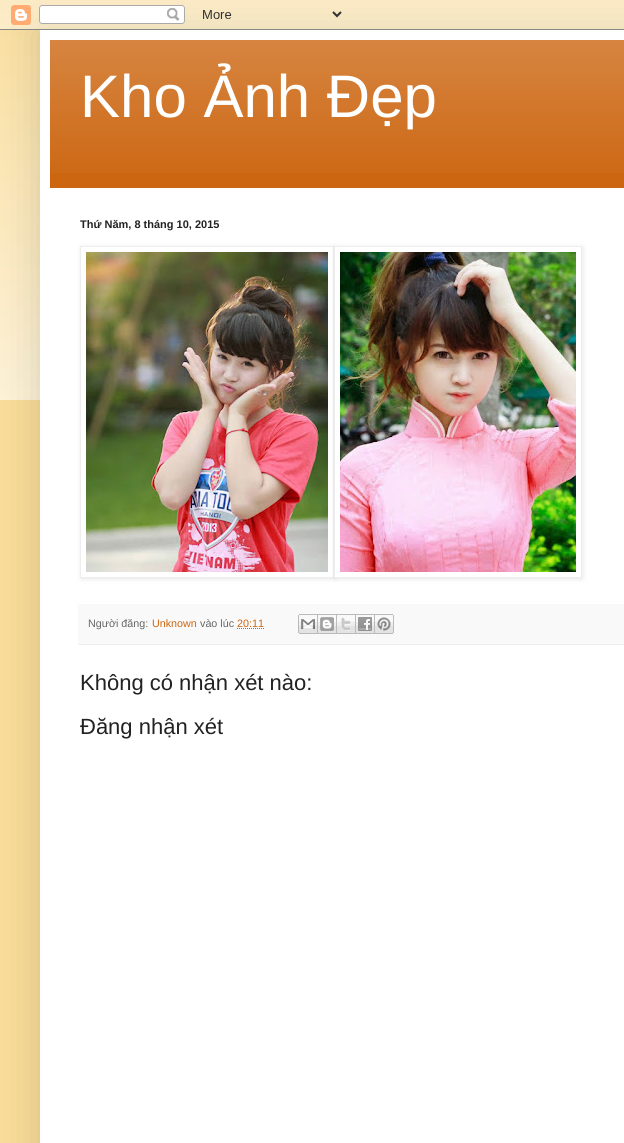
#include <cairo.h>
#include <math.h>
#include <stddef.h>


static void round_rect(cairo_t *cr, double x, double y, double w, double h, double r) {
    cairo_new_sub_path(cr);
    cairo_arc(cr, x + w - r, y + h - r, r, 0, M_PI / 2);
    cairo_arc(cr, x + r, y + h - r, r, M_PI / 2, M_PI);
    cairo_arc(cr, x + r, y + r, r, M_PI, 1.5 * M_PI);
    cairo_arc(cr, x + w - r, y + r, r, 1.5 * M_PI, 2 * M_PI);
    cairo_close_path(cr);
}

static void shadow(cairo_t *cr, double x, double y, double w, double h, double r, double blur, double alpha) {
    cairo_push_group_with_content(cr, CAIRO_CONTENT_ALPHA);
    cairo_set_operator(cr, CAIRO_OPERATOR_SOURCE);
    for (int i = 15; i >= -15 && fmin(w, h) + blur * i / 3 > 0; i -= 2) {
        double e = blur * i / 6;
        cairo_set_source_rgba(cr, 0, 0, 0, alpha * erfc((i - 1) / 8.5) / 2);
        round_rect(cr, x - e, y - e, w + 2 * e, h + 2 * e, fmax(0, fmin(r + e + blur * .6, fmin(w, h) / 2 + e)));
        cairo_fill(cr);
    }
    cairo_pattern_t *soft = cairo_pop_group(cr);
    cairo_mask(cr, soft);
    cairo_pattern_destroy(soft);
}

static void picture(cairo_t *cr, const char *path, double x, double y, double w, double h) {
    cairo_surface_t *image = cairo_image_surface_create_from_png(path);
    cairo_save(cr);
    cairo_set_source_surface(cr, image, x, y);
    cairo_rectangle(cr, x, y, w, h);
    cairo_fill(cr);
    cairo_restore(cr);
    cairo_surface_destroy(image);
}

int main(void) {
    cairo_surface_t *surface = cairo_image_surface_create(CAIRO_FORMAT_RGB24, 624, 1143);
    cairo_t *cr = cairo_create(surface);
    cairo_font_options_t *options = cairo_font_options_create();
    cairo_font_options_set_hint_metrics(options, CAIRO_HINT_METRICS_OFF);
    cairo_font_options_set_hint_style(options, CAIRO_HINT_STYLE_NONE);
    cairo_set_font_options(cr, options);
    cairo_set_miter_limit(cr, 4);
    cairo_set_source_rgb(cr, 0.976, 0.863, 0.6);
    cairo_paint(cr);
    picture(cr, "img1.png", 0, 0, 624, 400);
    cairo_set_source_rgb(cr, 0, 0, 0);
    shadow(cr, 40, 30, 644, 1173, 0, 20, 0.15);
    picture(cr, "img2.png", 0, 0, 624, 30);
    cairo_set_source_rgb(cr, 1, 1, 1);
    cairo_rectangle(cr, 40, 30, 584, 1113);
    cairo_fill(cr);
    cairo_set_source_rgb(cr, 0.8, 0.4, 0.067);
    cairo_rectangle(cr, 50, 40, 574, 148);
    cairo_fill(cr);
    picture(cr, "img3.png", 50, 40, 574, 133);
    cairo_select_font_face(cr, "Liberation Sans", CAIRO_FONT_SLANT_NORMAL, CAIRO_FONT_WEIGHT_NORMAL);
    cairo_set_font_size(cr, 60);
    cairo_set_source_rgb(cr, 1, 1, 1);
    cairo_move_to(cr, 80, 117);
    cairo_show_text(cr, "Kho Ảnh Đẹp");
    cairo_select_font_face(cr, "Liberation Sans", CAIRO_FONT_SLANT_NORMAL, CAIRO_FONT_WEIGHT_BOLD);
    cairo_set_font_size(cr, 11);
    cairo_set_source_rgb(cr, 0.133, 0.133, 0.133);
    cairo_move_to(cr, 80, 228);
    cairo_show_text(cr, "Thứ Năm, 8 tháng 10, 2015");
    cairo_save(cr);
    cairo_set_fill_rule(cr, CAIRO_FILL_RULE_EVEN_ODD);
    cairo_new_path(cr);
    cairo_move_to(cr, 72, 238);
    cairo_line_to(cr, 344, 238);
    cairo_line_to(cr, 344, 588);
    cairo_line_to(cr, 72, 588);
    cairo_close_path(cr);
    cairo_move_to(cr, 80, 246);
    cairo_line_to(cr, 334, 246);
    cairo_line_to(cr, 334, 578);
    cairo_line_to(cr, 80, 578);
    cairo_close_path(cr);
    cairo_clip(cr);
    cairo_set_source_rgb(cr, 0, 0, 0);
    shadow(cr, 81, 247, 254, 332, 0, 2.5, 0.1);
    cairo_restore(cr);
    cairo_rectangle(cr, 80.5, 246.5, 253, 331);
    cairo_set_source_rgb(cr, 0.933, 0.933, 0.933);
    cairo_set_line_width(cr, 1);
    cairo_stroke(cr);
    picture(cr, "img4.png", 86, 252, 242, 320);
    cairo_set_source_rgb(cr, 0, 0, 0);
    shadow(cr, 335, 247, 248, 332, 0, 2.5, 0.1);
    cairo_set_source_rgb(cr, 1, 1, 1);
    cairo_rectangle(cr, 334.5, 246.5, 247, 331);
    cairo_fill_preserve(cr);
    cairo_set_source_rgb(cr, 0.933, 0.933, 0.933);
    cairo_stroke(cr);
    picture(cr, "img5.png", 340, 252, 236, 320);
    cairo_set_source_rgb(cr, 0.976, 0.976, 0.976);
    cairo_rectangle(cr, 78, 604, 546, 40);
    cairo_fill(cr);
    cairo_set_source_rgb(cr, 0.933, 0.933, 0.933);
    cairo_rectangle(cr, 78, 644, 546, 1);
    cairo_fill(cr);
    cairo_select_font_face(cr, "Liberation Sans", CAIRO_FONT_SLANT_NORMAL, CAIRO_FONT_WEIGHT_NORMAL);
    cairo_set_font_size(cr, 10.75);
    cairo_set_source_rgb(cr, 0.4, 0.4, 0.4);
    cairo_move_to(cr, 88, 627);
    cairo_show_text(cr, "Người đăng:");
    cairo_set_source_rgb(cr, 0.8, 0.4, 0.067);
    cairo_move_to(cr, 152, 627);
    cairo_show_text(cr, "Unknown");
    cairo_set_source_rgb(cr, 0.4, 0.4, 0.4);
    cairo_move_to(cr, 200, 627);
    cairo_show_text(cr, "vào lúc");
    cairo_set_source_rgb(cr, 0.8, 0.4, 0.067);
    cairo_move_to(cr, 237, 627);
    cairo_show_text(cr, "20:11");
    cairo_new_path(cr);
    cairo_move_to(cr, 237, 628.5);
    cairo_line_to(cr, 264, 628.5);
    cairo_set_dash(cr, (double[]){1, 1}, 2, 0);
    cairo_stroke(cr);
    picture(cr, "img6.png", 298, 614, 20, 20);
    picture(cr, "img7.png", 318, 614, 19, 20);
    picture(cr, "img8.png", 337, 614, 19, 20);
    picture(cr, "img9.png", 356, 614, 19, 20);
    picture(cr, "img10.png", 375, 614, 19, 20);
    cairo_set_font_size(cr, 22);
    cairo_set_source_rgb(cr, 0.133, 0.133, 0.133);
    cairo_move_to(cr, 80, 690);
    cairo_show_text(cr, "Không có nhận xét nào:");
    cairo_move_to(cr, 80, 734);
    cairo_show_text(cr, "Đăng nhận xét");
    cairo_surface_write_to_png(surface, "page.png");
    cairo_font_options_destroy(options);
    cairo_destroy(cr);
    cairo_surface_destroy(surface);
    return 0;
}
